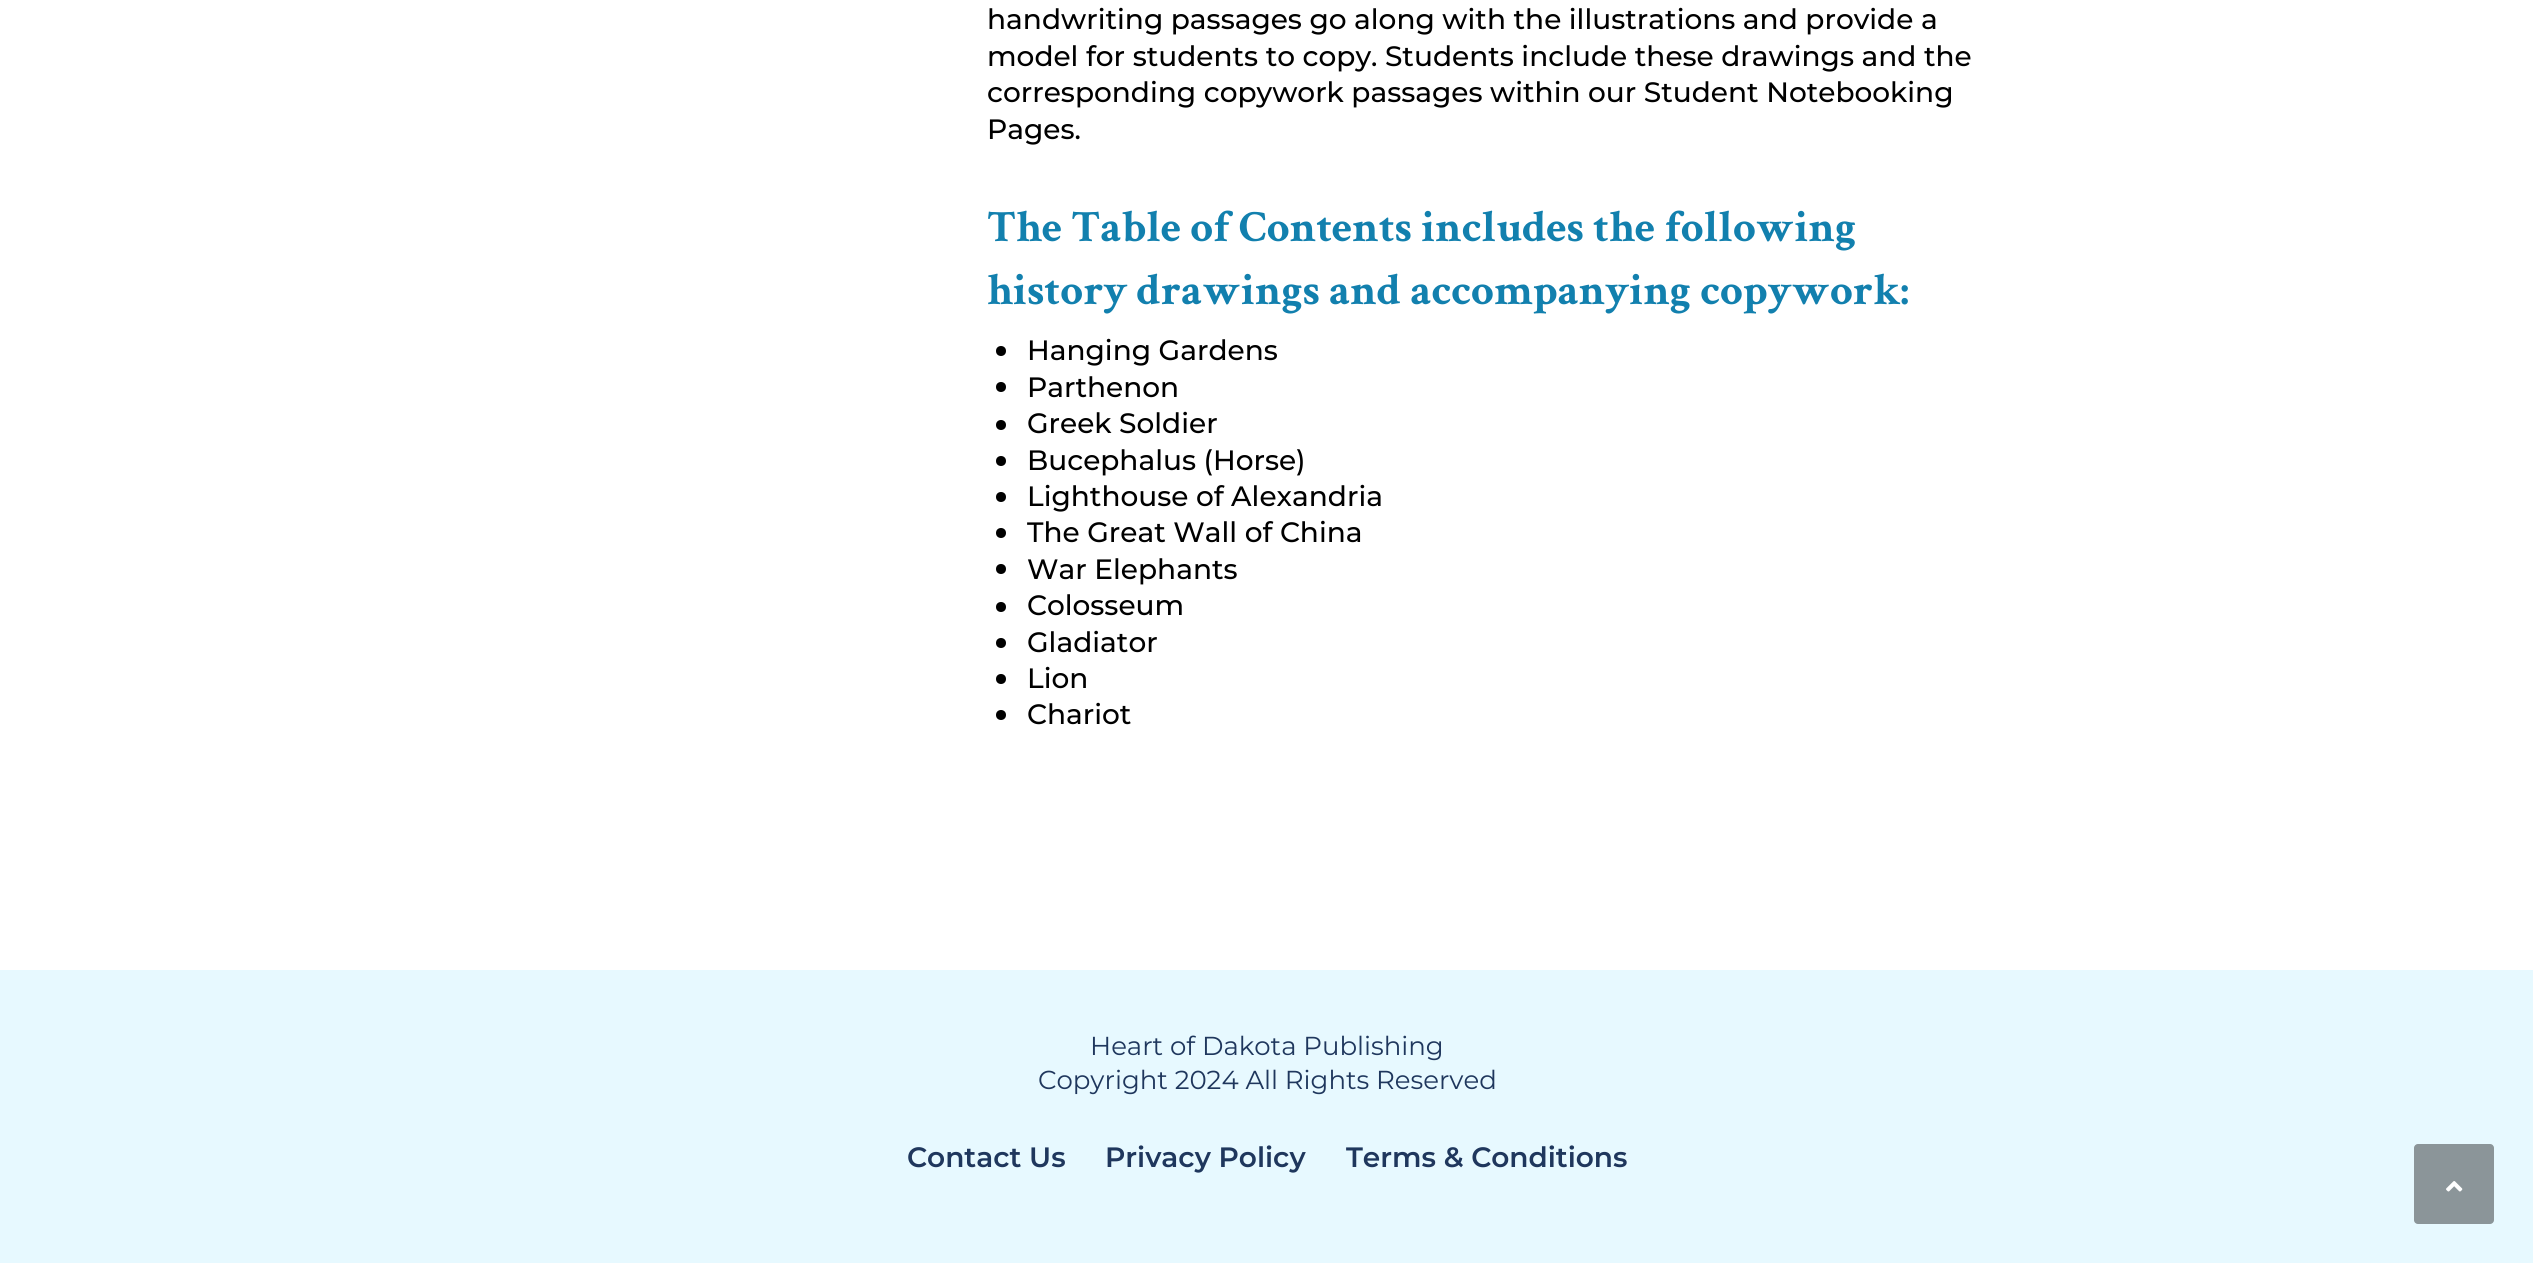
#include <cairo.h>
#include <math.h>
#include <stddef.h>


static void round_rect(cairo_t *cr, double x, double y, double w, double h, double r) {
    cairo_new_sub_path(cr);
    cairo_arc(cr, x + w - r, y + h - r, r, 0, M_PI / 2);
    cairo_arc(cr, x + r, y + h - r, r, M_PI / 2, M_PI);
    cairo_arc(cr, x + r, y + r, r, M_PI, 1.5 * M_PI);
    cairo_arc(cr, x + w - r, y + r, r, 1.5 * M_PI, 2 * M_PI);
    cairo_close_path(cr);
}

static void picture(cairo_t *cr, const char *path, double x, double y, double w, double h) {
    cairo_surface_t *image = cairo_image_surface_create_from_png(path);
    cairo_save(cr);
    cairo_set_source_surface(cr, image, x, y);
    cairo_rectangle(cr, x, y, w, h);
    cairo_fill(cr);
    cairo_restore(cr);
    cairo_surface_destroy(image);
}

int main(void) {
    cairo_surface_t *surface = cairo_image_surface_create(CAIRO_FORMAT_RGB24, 2533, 1263);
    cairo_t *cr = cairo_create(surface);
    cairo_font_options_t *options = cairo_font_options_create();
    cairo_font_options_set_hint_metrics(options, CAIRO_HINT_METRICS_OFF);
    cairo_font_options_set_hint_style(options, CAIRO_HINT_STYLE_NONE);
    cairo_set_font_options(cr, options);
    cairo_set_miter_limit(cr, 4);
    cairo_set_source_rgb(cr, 1, 1, 1);
    cairo_paint(cr);
    cairo_select_font_face(cr, "Montserrat Medium", CAIRO_FONT_SLANT_NORMAL, CAIRO_FONT_WEIGHT_NORMAL);
    cairo_set_font_size(cr, 28);
    cairo_set_source_rgb(cr, 0, 0, 0);
    cairo_move_to(cr, 987, 29);
    cairo_show_text(cr, "handwriting passages go along with the illustrations and provide a");
    cairo_move_to(cr, 987, 66);
    cairo_show_text(cr, "model for students to copy. Students include these drawings and the");
    cairo_move_to(cr, 987, 102);
    cairo_show_text(cr, "corresponding copywork passages within our Student Notebooking");
    cairo_move_to(cr, 987, 139);
    cairo_show_text(cr, "Pages.");
    cairo_select_font_face(cr, "Crimson Text", CAIRO_FONT_SLANT_NORMAL, CAIRO_FONT_WEIGHT_BOLD);
    cairo_set_font_size(cr, 44.8);
    cairo_set_source_rgb(cr, 0.071, 0.502, 0.682);
    cairo_move_to(cr, 987, 241);
    cairo_show_text(cr, "The Table of Contents includes the following");
    cairo_move_to(cr, 987, 304);
    cairo_show_text(cr, "history drawings and accompanying copywork:");
    cairo_set_source_rgb(cr, 0, 0, 0);
    cairo_new_path(cr);
    cairo_arc(cr, 1001, 351, 5, 0, 2 * M_PI);
    cairo_fill(cr);
    cairo_select_font_face(cr, "Montserrat Medium", CAIRO_FONT_SLANT_NORMAL, CAIRO_FONT_WEIGHT_NORMAL);
    cairo_set_font_size(cr, 28);
    cairo_move_to(cr, 1027, 360);
    cairo_show_text(cr, "Hanging Gardens");
    cairo_new_path(cr);
    cairo_arc(cr, 1001, 387, 5, 0, 2 * M_PI);
    cairo_fill(cr);
    cairo_move_to(cr, 1027, 397);
    cairo_show_text(cr, "Parthenon");
    cairo_new_path(cr);
    cairo_arc(cr, 1001, 425, 5, 0, 2 * M_PI);
    cairo_fill(cr);
    cairo_move_to(cr, 1027, 433);
    cairo_show_text(cr, "Greek Soldier");
    cairo_new_path(cr);
    cairo_arc(cr, 1001, 461, 5, 0, 2 * M_PI);
    cairo_fill(cr);
    cairo_move_to(cr, 1027, 470);
    cairo_show_text(cr, "Bucephalus (Horse)");
    cairo_new_path(cr);
    cairo_arc(cr, 1001, 497, 5, 0, 2 * M_PI);
    cairo_fill(cr);
    cairo_move_to(cr, 1027, 506);
    cairo_show_text(cr, "Lighthouse of Alexandria");
    cairo_new_path(cr);
    cairo_arc(cr, 1001, 533, 5, 0, 2 * M_PI);
    cairo_fill(cr);
    cairo_move_to(cr, 1027, 542);
    cairo_show_text(cr, "The Great Wall of China");
    cairo_new_path(cr);
    cairo_arc(cr, 1001, 569, 5, 0, 2 * M_PI);
    cairo_fill(cr);
    cairo_move_to(cr, 1027, 579);
    cairo_show_text(cr, "War Elephants");
    cairo_new_path(cr);
    cairo_arc(cr, 1001, 607, 5, 0, 2 * M_PI);
    cairo_fill(cr);
    cairo_move_to(cr, 1027, 615);
    cairo_show_text(cr, "Colosseum");
    cairo_new_path(cr);
    cairo_arc(cr, 1001, 643, 5, 0, 2 * M_PI);
    cairo_fill(cr);
    cairo_move_to(cr, 1027, 652);
    cairo_show_text(cr, "Gladiator");
    cairo_new_path(cr);
    cairo_arc(cr, 1001, 679, 5, 0, 2 * M_PI);
    cairo_fill(cr);
    cairo_move_to(cr, 1027, 688);
    cairo_show_text(cr, "Lion");
    cairo_new_path(cr);
    cairo_arc(cr, 1001, 715, 5, 0, 2 * M_PI);
    cairo_fill(cr);
    cairo_move_to(cr, 1027, 724);
    cairo_show_text(cr, "Chariot");
    cairo_set_source_rgb(cr, 0.906, 0.976, 1);
    cairo_rectangle(cr, 0, 970, 2533, 293);
    cairo_fill(cr);
    cairo_select_font_face(cr, "Montserrat", CAIRO_FONT_SLANT_NORMAL, CAIRO_FONT_WEIGHT_NORMAL);
    cairo_set_font_size(cr, 26);
    cairo_set_source_rgb(cr, 0.122, 0.216, 0.365);
    cairo_move_to(cr, 1090, 1055);
    cairo_show_text(cr, "Heart of Dakota Publishing");
    cairo_move_to(cr, 1038, 1089);
    cairo_show_text(cr, "Copyright 2024 All Rights Reserved");
    cairo_select_font_face(cr, "Montserrat SemiBold", CAIRO_FONT_SLANT_NORMAL, CAIRO_FONT_WEIGHT_NORMAL);
    cairo_set_font_size(cr, 28);
    cairo_move_to(cr, 907, 1167);
    cairo_show_text(cr, "Contact Us");
    cairo_move_to(cr, 1105, 1167);
    cairo_show_text(cr, "Privacy Policy");
    cairo_move_to(cr, 1346, 1167);
    cairo_show_text(cr, "Terms & Conditions");
    cairo_set_source_rgb(cr, 0.545, 0.584, 0.6);
    round_rect(cr, 2414, 1144, 80, 80, 4);
    cairo_fill(cr);
    picture(cr, "img1.png", 2446, 1181, 17, 11);
    cairo_surface_write_to_png(surface, "page.png");
    cairo_font_options_destroy(options);
    cairo_destroy(cr);
    cairo_surface_destroy(surface);
    return 0;
}
